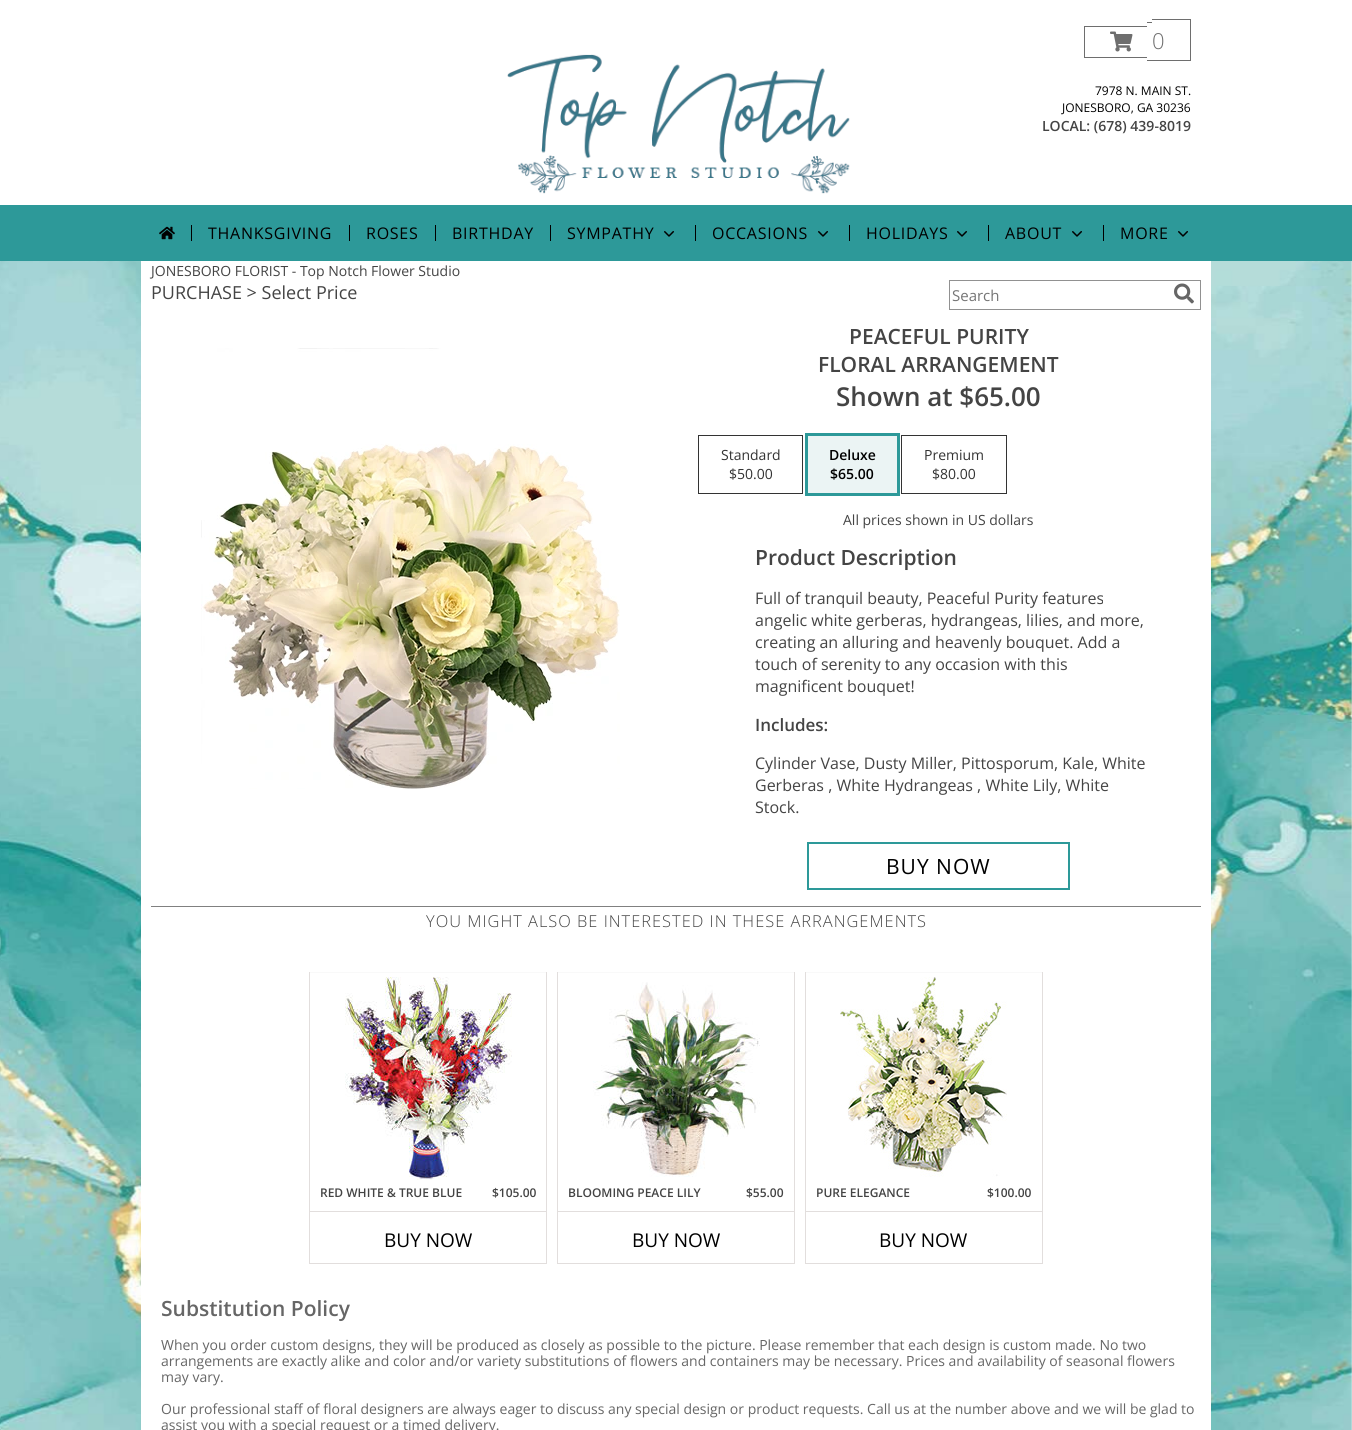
#include <cairo.h>
#include <math.h>
#include <stddef.h>


static void spaced_text(cairo_t *cr, double x, double y, const char *s, double letter, double word) {
    cairo_move_to(cr, x, y);
    while (*s) {
        char ch[5] = {0};
        int n = 0;
        do ch[n++] = *s++; while ((*s & 0xC0) == 0x80);
        cairo_show_text(cr, ch);
        cairo_rel_move_to(cr, letter + word * (*ch == ' '), 0);
    }
}

static void picture(cairo_t *cr, const char *path, double x, double y, double w, double h) {
    cairo_surface_t *image = cairo_image_surface_create_from_png(path);
    cairo_save(cr);
    cairo_set_source_surface(cr, image, x, y);
    cairo_rectangle(cr, x, y, w, h);
    cairo_fill(cr);
    cairo_restore(cr);
    cairo_surface_destroy(image);
}

int main(void) {
    cairo_surface_t *surface = cairo_image_surface_create(CAIRO_FORMAT_RGB24, 1352, 1430);
    cairo_t *cr = cairo_create(surface);
    cairo_font_options_t *options = cairo_font_options_create();
    cairo_font_options_set_hint_metrics(options, CAIRO_HINT_METRICS_OFF);
    cairo_font_options_set_hint_style(options, CAIRO_HINT_STYLE_NONE);
    cairo_set_font_options(cr, options);
    cairo_set_miter_limit(cr, 4);
    cairo_set_source_rgb(cr, 1, 1, 1);
    cairo_paint(cr);
    picture(cr, "img1.png", 0, 261, 1352, 1169);
    cairo_set_source_rgb(cr, 1, 1, 1);
    cairo_rectangle(cr, 141, 261, 1070, 1169);
    cairo_fill(cr);
    picture(cr, "img2.png", 507, 54, 343, 140);
    cairo_set_source_rgb(cr, 0.431, 0.431, 0.431);
    cairo_rectangle(cr, 1084, 26, 63, 1);
    cairo_fill(cr);
    cairo_rectangle(cr, 1084, 57, 63, 1);
    cairo_fill(cr);
    cairo_rectangle(cr, 1084, 26, 1, 32);
    cairo_fill(cr);
    cairo_rectangle(cr, 1147, 22, 5, 1);
    cairo_fill(cr);
    cairo_rectangle(cr, 1147, 60, 5, 1);
    cairo_fill(cr);
    cairo_rectangle(cr, 1152, 19, 39, 1);
    cairo_fill(cr);
    cairo_rectangle(cr, 1190, 19, 1, 42);
    cairo_fill(cr);
    cairo_rectangle(cr, 1152, 60, 39, 1);
    cairo_fill(cr);
    picture(cr, "img3.png", 1110, 31, 23, 21);
    cairo_select_font_face(cr, "Open Sans Light", CAIRO_FONT_SLANT_NORMAL, CAIRO_FONT_WEIGHT_NORMAL);
    cairo_set_font_size(cr, 22);
    cairo_move_to(cr, 1152, 49);
    cairo_show_text(cr, "0");
    cairo_select_font_face(cr, "Open Sans", CAIRO_FONT_SLANT_NORMAL, CAIRO_FONT_WEIGHT_NORMAL);
    cairo_set_font_size(cr, 12);
    cairo_set_source_rgb(cr, 0, 0, 0);
    cairo_move_to(cr, 1095, 95);
    cairo_show_text(cr, "7978 N. MAIN ST.");
    cairo_move_to(cr, 1062, 112);
    cairo_show_text(cr, "JONESBORO, GA 30236");
    cairo_select_font_face(cr, "Open Sans SemiBold", CAIRO_FONT_SLANT_NORMAL, CAIRO_FONT_WEIGHT_NORMAL);
    cairo_set_font_size(cr, 14);
    cairo_set_source_rgb(cr, 0.267, 0.267, 0.267);
    cairo_move_to(cr, 1042, 131);
    cairo_show_text(cr, "LOCAL: (678) 439-8019");
    cairo_set_source_rgb(cr, 0.176, 0.6, 0.6);
    cairo_rectangle(cr, 0, 205, 1352, 56);
    cairo_fill(cr);
    picture(cr, "img4.png", 159, 226, 16, 14);
    cairo_set_source_rgb(cr, 0, 0, 0);
    cairo_rectangle(cr, 191, 225, 1, 16);
    cairo_fill(cr);
    cairo_select_font_face(cr, "Open Sans", CAIRO_FONT_SLANT_NORMAL, CAIRO_FONT_WEIGHT_NORMAL);
    cairo_set_font_size(cr, 16);
    spaced_text(cr, 208, 239, "THANKSGIVING", 0.75, 0);
    cairo_rectangle(cr, 349, 225, 1, 16);
    cairo_fill(cr);
    spaced_text(cr, 366, 239, "ROSES", 0.75, 0);
    cairo_rectangle(cr, 435, 225, 1, 16);
    cairo_fill(cr);
    spaced_text(cr, 452, 239, "BIRTHDAY", 0.75, 0);
    cairo_rectangle(cr, 550, 225, 1, 16);
    cairo_fill(cr);
    spaced_text(cr, 567, 239, "SYMPATHY", 0.75, 0);
    picture(cr, "img5.png", 664, 231, 10, 6);
    cairo_rectangle(cr, 695, 225, 1, 16);
    cairo_fill(cr);
    spaced_text(cr, 712, 239, "OCCASIONS", 0.75, 0);
    picture(cr, "img5.png", 818, 231, 10, 6);
    cairo_rectangle(cr, 849, 225, 1, 16);
    cairo_fill(cr);
    spaced_text(cr, 866, 239, "HOLIDAYS", 0.75, 0);
    picture(cr, "img5.png", 957, 231, 10, 6);
    cairo_rectangle(cr, 988, 225, 1, 16);
    cairo_fill(cr);
    spaced_text(cr, 1005, 239, "ABOUT", 0.75, 0);
    picture(cr, "img5.png", 1072, 231, 10, 6);
    cairo_rectangle(cr, 1103, 225, 1, 16);
    cairo_fill(cr);
    spaced_text(cr, 1120, 239, "MORE", 0.75, 0);
    picture(cr, "img5.png", 1178, 231, 10, 6);
    cairo_set_font_size(cr, 14);
    cairo_set_source_rgb(cr, 0.267, 0.267, 0.267);
    cairo_move_to(cr, 151, 276);
    cairo_show_text(cr, "JONESBORO FLORIST - Top Notch Flower Studio");
    cairo_set_font_size(cr, 18);
    cairo_move_to(cr, 151, 299);
    cairo_show_text(cr, "PURCHASE > Select Price");
    cairo_rectangle(cr, 949.5, 280.5, 251, 29);
    cairo_set_source_rgb(cr, 0.569, 0.569, 0.569);
    cairo_set_line_width(cr, 1);
    cairo_stroke(cr);
    cairo_set_font_size(cr, 15);
    cairo_set_source_rgb(cr, 0.459, 0.459, 0.459);
    cairo_move_to(cr, 952, 301);
    cairo_show_text(cr, "Search");
    picture(cr, "img6.png", 1174, 283, 20, 21);
    picture(cr, "img7.png", 201, 348, 419, 441);
    cairo_select_font_face(cr, "Open Sans SemiBold", CAIRO_FONT_SLANT_NORMAL, CAIRO_FONT_WEIGHT_NORMAL);
    cairo_set_font_size(cr, 21);
    cairo_set_source_rgb(cr, 0.267, 0.267, 0.267);
    cairo_move_to(cr, 849, 344);
    cairo_show_text(cr, "PEACEFUL PURITY");
    cairo_move_to(cr, 818, 372);
    cairo_show_text(cr, "FLORAL ARRANGEMENT");
    cairo_set_font_size(cr, 26);
    cairo_move_to(cr, 836, 406);
    cairo_show_text(cr, "Shown at $65.00");
    cairo_rectangle(cr, 698.5, 435.5, 104, 58);
    cairo_set_source_rgb(cr, 0.2, 0.2, 0.2);
    cairo_stroke(cr);
    cairo_select_font_face(cr, "Open Sans", CAIRO_FONT_SLANT_NORMAL, CAIRO_FONT_WEIGHT_NORMAL);
    cairo_set_font_size(cr, 14);
    cairo_move_to(cr, 721, 460);
    cairo_show_text(cr, "Standard");
    cairo_move_to(cr, 729, 479);
    cairo_show_text(cr, "$50.00");
    cairo_rectangle(cr, 806.5, 434.5, 92, 60);
    cairo_set_source_rgb(cr, 0.176, 0.6, 0.6);
    cairo_set_line_width(cr, 3);
    cairo_stroke(cr);
    cairo_set_source_rgb(cr, 0.918, 0.957, 0.957);
    cairo_rectangle(cr, 808, 436, 89, 57);
    cairo_fill(cr);
    cairo_select_font_face(cr, "Open Sans SemiBold", CAIRO_FONT_SLANT_NORMAL, CAIRO_FONT_WEIGHT_NORMAL);
    cairo_set_source_rgb(cr, 0, 0, 0);
    cairo_move_to(cr, 829, 460);
    cairo_show_text(cr, "Deluxe");
    cairo_move_to(cr, 830, 479);
    cairo_show_text(cr, "$65.00");
    cairo_rectangle(cr, 901.5, 435.5, 105, 58);
    cairo_set_source_rgb(cr, 0.2, 0.2, 0.2);
    cairo_set_line_width(cr, 1);
    cairo_stroke(cr);
    cairo_select_font_face(cr, "Open Sans", CAIRO_FONT_SLANT_NORMAL, CAIRO_FONT_WEIGHT_NORMAL);
    cairo_move_to(cr, 924, 460);
    cairo_show_text(cr, "Premium");
    cairo_move_to(cr, 932, 479);
    cairo_show_text(cr, "$80.00");
    cairo_set_source_rgb(cr, 0.267, 0.267, 0.267);
    cairo_move_to(cr, 843, 525);
    cairo_show_text(cr, "All prices shown in US dollars");
    cairo_select_font_face(cr, "Open Sans SemiBold", CAIRO_FONT_SLANT_NORMAL, CAIRO_FONT_WEIGHT_NORMAL);
    cairo_set_font_size(cr, 21);
    cairo_move_to(cr, 755, 565);
    cairo_show_text(cr, "Product Description");
    cairo_select_font_face(cr, "Open Sans", CAIRO_FONT_SLANT_NORMAL, CAIRO_FONT_WEIGHT_NORMAL);
    cairo_set_font_size(cr, 16);
    cairo_move_to(cr, 755, 604);
    cairo_show_text(cr, "Full of tranquil beauty, Peaceful Purity features");
    cairo_move_to(cr, 755, 626);
    cairo_show_text(cr, "angelic white gerberas, hydrangeas, lilies, and more,");
    cairo_move_to(cr, 755, 648);
    cairo_show_text(cr, "creating an alluring and heavenly bouquet. Add a");
    cairo_move_to(cr, 755, 670);
    cairo_show_text(cr, "touch of serenity to any occasion with this");
    cairo_move_to(cr, 755, 692);
    cairo_show_text(cr, "magnificent bouquet!");
    cairo_select_font_face(cr, "Open Sans SemiBold", CAIRO_FONT_SLANT_NORMAL, CAIRO_FONT_WEIGHT_NORMAL);
    cairo_set_font_size(cr, 17);
    cairo_move_to(cr, 755, 731);
    cairo_show_text(cr, "Includes:");
    cairo_select_font_face(cr, "Open Sans", CAIRO_FONT_SLANT_NORMAL, CAIRO_FONT_WEIGHT_NORMAL);
    cairo_set_font_size(cr, 16);
    cairo_move_to(cr, 755, 769);
    cairo_show_text(cr, "Cylinder Vase, Dusty Miller, Pittosporum, Kale, White");
    cairo_move_to(cr, 755, 791);
    cairo_show_text(cr, "Gerberas , White Hydrangeas , White Lily, White");
    cairo_move_to(cr, 755, 813);
    cairo_show_text(cr, "Stock.");
    cairo_rectangle(cr, 808, 843, 261, 46);
    cairo_set_source_rgb(cr, 0.176, 0.6, 0.6);
    cairo_set_line_width(cr, 2);
    cairo_stroke(cr);
    cairo_set_font_size(cr, 21);
    cairo_set_source_rgb(cr, 0, 0, 0);
    spaced_text(cr, 886, 874, "BUY NOW", 1, 0);
    cairo_set_source_rgb(cr, 0.502, 0.502, 0.502);
    cairo_rectangle(cr, 151, 906, 1050, 1);
    cairo_fill(cr);
    cairo_select_font_face(cr, "Open Sans Light", CAIRO_FONT_SLANT_NORMAL, CAIRO_FONT_WEIGHT_NORMAL);
    cairo_set_font_size(cr, 16.4);
    cairo_set_source_rgb(cr, 0.267, 0.267, 0.267);
    spaced_text(cr, 426, 927, "YOU MIGHT ALSO BE INTERESTED IN THESE ARRANGEMENTS", 1, 0);
    cairo_set_source_rgb(cr, 0.976, 0.976, 0.976);
    cairo_rectangle(cr, 309, 972, 238, 1);
    cairo_fill(cr);
    cairo_set_source_rgb(cr, 0.886, 0.871, 0.867);
    cairo_rectangle(cr, 546, 972, 1, 292);
    cairo_fill(cr);
    cairo_rectangle(cr, 309, 1263, 238, 1);
    cairo_fill(cr);
    cairo_rectangle(cr, 309, 972, 1, 292);
    cairo_fill(cr);
    picture(cr, "img8.png", 345, 977, 167, 203);
    cairo_select_font_face(cr, "Open Sans SemiBold", CAIRO_FONT_SLANT_NORMAL, CAIRO_FONT_WEIGHT_NORMAL);
    cairo_set_font_size(cr, 12);
    cairo_set_source_rgb(cr, 0.267, 0.267, 0.267);
    cairo_move_to(cr, 320, 1197);
    cairo_show_text(cr, "RED WHITE & TRUE BLUE");
    cairo_move_to(cr, 492, 1197);
    cairo_show_text(cr, "$105.00");
    cairo_set_source_rgb(cr, 0.886, 0.871, 0.867);
    cairo_rectangle(cr, 310, 1211, 236, 1);
    cairo_fill(cr);
    cairo_select_font_face(cr, "Open Sans", CAIRO_FONT_SLANT_NORMAL, CAIRO_FONT_WEIGHT_NORMAL);
    cairo_set_font_size(cr, 19);
    cairo_set_source_rgb(cr, 0, 0, 0);
    cairo_move_to(cr, 384, 1247);
    cairo_show_text(cr, "BUY NOW");
    cairo_set_source_rgb(cr, 0.976, 0.976, 0.976);
    cairo_rectangle(cr, 557, 972, 238, 1);
    cairo_fill(cr);
    cairo_set_source_rgb(cr, 0.886, 0.871, 0.867);
    cairo_rectangle(cr, 794, 972, 1, 292);
    cairo_fill(cr);
    cairo_rectangle(cr, 557, 1263, 238, 1);
    cairo_fill(cr);
    cairo_rectangle(cr, 557, 972, 1, 292);
    cairo_fill(cr);
    picture(cr, "img9.png", 593, 982, 167, 195);
    cairo_select_font_face(cr, "Open Sans SemiBold", CAIRO_FONT_SLANT_NORMAL, CAIRO_FONT_WEIGHT_NORMAL);
    cairo_set_font_size(cr, 12);
    cairo_set_source_rgb(cr, 0.267, 0.267, 0.267);
    cairo_move_to(cr, 568, 1197);
    cairo_show_text(cr, "BLOOMING PEACE LILY");
    cairo_move_to(cr, 746, 1197);
    cairo_show_text(cr, "$55.00");
    cairo_set_source_rgb(cr, 0.886, 0.871, 0.867);
    cairo_rectangle(cr, 558, 1211, 236, 1);
    cairo_fill(cr);
    cairo_select_font_face(cr, "Open Sans", CAIRO_FONT_SLANT_NORMAL, CAIRO_FONT_WEIGHT_NORMAL);
    cairo_set_font_size(cr, 19);
    cairo_set_source_rgb(cr, 0, 0, 0);
    cairo_move_to(cr, 632, 1247);
    cairo_show_text(cr, "BUY NOW");
    cairo_set_source_rgb(cr, 0.976, 0.976, 0.976);
    cairo_rectangle(cr, 805, 972, 238, 1);
    cairo_fill(cr);
    cairo_set_source_rgb(cr, 0.886, 0.871, 0.867);
    cairo_rectangle(cr, 1042, 972, 1, 292);
    cairo_fill(cr);
    cairo_rectangle(cr, 805, 1263, 238, 1);
    cairo_fill(cr);
    cairo_rectangle(cr, 805, 972, 1, 292);
    cairo_fill(cr);
    picture(cr, "img10.png", 840, 977, 167, 200);
    cairo_select_font_face(cr, "Open Sans SemiBold", CAIRO_FONT_SLANT_NORMAL, CAIRO_FONT_WEIGHT_NORMAL);
    cairo_set_font_size(cr, 12);
    cairo_set_source_rgb(cr, 0.267, 0.267, 0.267);
    cairo_move_to(cr, 816, 1197);
    cairo_show_text(cr, "PURE ELEGANCE");
    cairo_move_to(cr, 987, 1197);
    cairo_show_text(cr, "$100.00");
    cairo_set_source_rgb(cr, 0.886, 0.871, 0.867);
    cairo_rectangle(cr, 806, 1211, 236, 1);
    cairo_fill(cr);
    cairo_select_font_face(cr, "Open Sans", CAIRO_FONT_SLANT_NORMAL, CAIRO_FONT_WEIGHT_NORMAL);
    cairo_set_font_size(cr, 19);
    cairo_set_source_rgb(cr, 0, 0, 0);
    cairo_move_to(cr, 879, 1247);
    cairo_show_text(cr, "BUY NOW");
    cairo_select_font_face(cr, "Open Sans SemiBold", CAIRO_FONT_SLANT_NORMAL, CAIRO_FONT_WEIGHT_NORMAL);
    cairo_set_font_size(cr, 21);
    cairo_set_source_rgb(cr, 0.4, 0.4, 0.4);
    cairo_move_to(cr, 161, 1316);
    cairo_show_text(cr, "Substitution Policy");
    cairo_select_font_face(cr, "Open Sans", CAIRO_FONT_SLANT_NORMAL, CAIRO_FONT_WEIGHT_NORMAL);
    cairo_set_font_size(cr, 14);
    cairo_move_to(cr, 161, 1350);
    cairo_show_text(cr, "When you order custom designs, they will be produced as closely as possible to the picture. Please remember that each design is custom made. No two");
    cairo_move_to(cr, 161, 1366);
    cairo_show_text(cr, "arrangements are exactly alike and color and/or variety substitutions of flowers and containers may be necessary. Prices and availability of seasonal flowers");
    cairo_move_to(cr, 161, 1382);
    cairo_show_text(cr, "may vary.");
    cairo_move_to(cr, 161, 1414);
    cairo_show_text(cr, "Our professional staff of floral designers are always eager to discuss any special design or product requests. Call us at the number above and we will be glad to");
    cairo_move_to(cr, 161, 1430);
    cairo_show_text(cr, "assist you with a special request or a timed delivery.");
    cairo_surface_write_to_png(surface, "page.png");
    cairo_font_options_destroy(options);
    cairo_destroy(cr);
    cairo_surface_destroy(surface);
    return 0;
}
